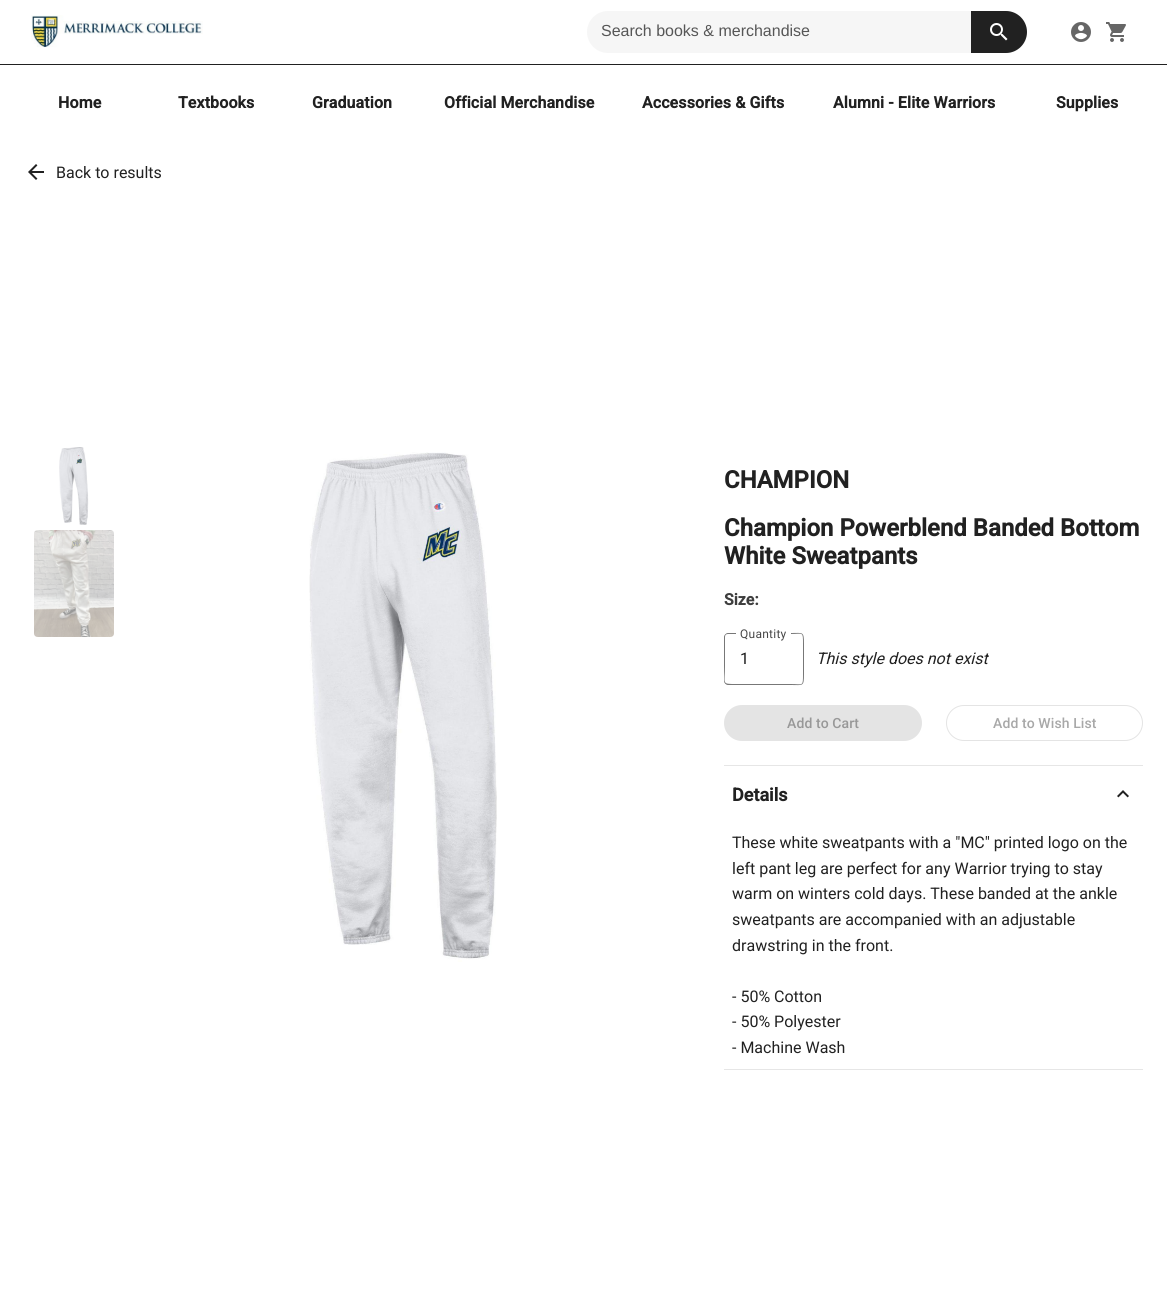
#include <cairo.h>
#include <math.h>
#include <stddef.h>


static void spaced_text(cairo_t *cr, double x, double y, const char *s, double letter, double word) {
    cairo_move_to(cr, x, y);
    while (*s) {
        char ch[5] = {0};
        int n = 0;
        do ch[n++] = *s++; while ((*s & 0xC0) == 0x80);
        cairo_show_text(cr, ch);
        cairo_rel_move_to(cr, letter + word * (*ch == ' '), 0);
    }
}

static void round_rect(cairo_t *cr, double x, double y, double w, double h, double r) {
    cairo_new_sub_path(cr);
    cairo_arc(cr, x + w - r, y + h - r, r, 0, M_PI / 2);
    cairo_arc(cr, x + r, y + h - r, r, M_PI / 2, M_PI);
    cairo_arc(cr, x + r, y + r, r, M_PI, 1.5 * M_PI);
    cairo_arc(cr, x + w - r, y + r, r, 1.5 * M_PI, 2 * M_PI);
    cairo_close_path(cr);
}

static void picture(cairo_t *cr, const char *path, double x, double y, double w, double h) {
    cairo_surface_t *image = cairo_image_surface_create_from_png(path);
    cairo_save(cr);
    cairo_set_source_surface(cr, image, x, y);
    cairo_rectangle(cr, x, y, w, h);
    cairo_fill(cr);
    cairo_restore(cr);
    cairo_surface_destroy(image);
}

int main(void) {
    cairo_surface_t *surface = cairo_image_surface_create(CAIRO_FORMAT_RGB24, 1167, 1300);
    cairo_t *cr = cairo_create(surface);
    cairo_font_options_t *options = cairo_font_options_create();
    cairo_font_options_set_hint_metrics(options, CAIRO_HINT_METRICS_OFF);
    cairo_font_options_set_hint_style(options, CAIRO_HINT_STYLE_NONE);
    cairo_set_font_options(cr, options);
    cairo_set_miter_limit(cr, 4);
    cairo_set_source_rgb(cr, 1, 1, 1);
    cairo_paint(cr);
    picture(cr, "img1.png", 31, 15, 172, 33);
    cairo_set_source_rgb(cr, 0.961, 0.961, 0.961);
    round_rect(cr, 587, 11, 440, 42, 21);
    cairo_fill(cr);
    cairo_select_font_face(cr, "Liberation Sans", CAIRO_FONT_SLANT_NORMAL, CAIRO_FONT_WEIGHT_NORMAL);
    cairo_set_font_size(cr, 16);
    cairo_set_source_rgb(cr, 0.337, 0.337, 0.337);
    cairo_move_to(cr, 601, 36);
    cairo_show_text(cr, "Search books & merchandise");
    cairo_set_source_rgb(cr, 0.129, 0.129, 0.129);
    cairo_new_path(cr);
    cairo_move_to(cr, 971, 11);
    cairo_line_to(cr, 1006, 11);
    cairo_curve_to(cr, 1017.5, 11, 1027, 20.5, 1027, 32);
    cairo_curve_to(cr, 1027, 43.5, 1017.5, 53, 1006, 53);
    cairo_line_to(cr, 971, 53);
    cairo_close_path(cr);
    cairo_fill(cr);
    picture(cr, "img2.png", 990, 23, 18, 18);
    picture(cr, "img3.png", 1071, 22, 20, 20);
    picture(cr, "img4.png", 1106, 22, 20, 20);
    cairo_rectangle(cr, 0, 64, 1167, 1);
    cairo_fill(cr);
    cairo_select_font_face(cr, "Roboto", CAIRO_FONT_SLANT_NORMAL, CAIRO_FONT_WEIGHT_BOLD);
    spaced_text(cr, 58, 108, "Home", 0.1, 0);
    spaced_text(cr, 178, 108, "Textbooks", 0.1, 0);
    spaced_text(cr, 312, 108, "Graduation", 0.1, 0);
    spaced_text(cr, 444, 108, "Official Merchandise", 0.1, 0);
    spaced_text(cr, 642, 108, "Accessories & Gifts", 0.1, 0);
    spaced_text(cr, 833, 108, "Alumni - Elite Warriors", 0.1, 0);
    spaced_text(cr, 1056, 108, "Supplies", 0.1, 0);
    picture(cr, "img5.png", 28, 164, 16, 16);
    cairo_select_font_face(cr, "Roboto", CAIRO_FONT_SLANT_NORMAL, CAIRO_FONT_WEIGHT_NORMAL);
    cairo_move_to(cr, 56, 178);
    cairo_show_text(cr, "Back to results");
    picture(cr, "img6.png", 59, 447, 30, 78);
    picture(cr, "img7.png", 34, 530, 80, 107);
    picture(cr, "img8.png", 309, 452, 188, 510);
    cairo_select_font_face(cr, "Roboto", CAIRO_FONT_SLANT_NORMAL, CAIRO_FONT_WEIGHT_BOLD);
    cairo_set_font_size(cr, 24);
    cairo_move_to(cr, 724, 488);
    cairo_show_text(cr, "CHAMPION");
    cairo_move_to(cr, 724, 536);
    cairo_show_text(cr, "Champion Powerblend Banded Bottom");
    cairo_move_to(cr, 724, 564);
    cairo_show_text(cr, "White Sweatpants");
    cairo_set_font_size(cr, 16);
    cairo_set_source_rgb(cr, 0.243, 0.243, 0.243);
    cairo_move_to(cr, 724, 605);
    cairo_show_text(cr, "Size:");
    cairo_set_source_rgb(cr, 0.467, 0.467, 0.467);
    cairo_set_fill_rule(cr, CAIRO_FILL_RULE_EVEN_ODD);
    cairo_new_path(cr);
    cairo_move_to(cr, 728, 633);
    cairo_line_to(cr, 736, 633);
    cairo_line_to(cr, 736, 685);
    cairo_line_to(cr, 728, 685);
    cairo_curve_to(cr, 726, 685, 724, 683, 724, 681);
    cairo_line_to(cr, 724, 637);
    cairo_curve_to(cr, 724, 635, 726, 633, 728, 633);
    cairo_close_path(cr);
    cairo_move_to(cr, 728, 634);
    cairo_line_to(cr, 736, 634);
    cairo_line_to(cr, 736, 684);
    cairo_curve_to(cr, 721, 684, 725, 684, 725, 666);
    cairo_line_to(cr, 725, 637);
    cairo_curve_to(cr, 725, 635, 726, 634, 728, 634);
    cairo_close_path(cr);
    cairo_fill(cr);
    cairo_set_fill_rule(cr, CAIRO_FILL_RULE_WINDING);
    cairo_new_path(cr);
    cairo_move_to(cr, 791, 685);
    cairo_line_to(cr, 735, 685);
    cairo_line_to(cr, 736, 684);
    cairo_line_to(cr, 791, 684);
    cairo_close_path(cr);
    cairo_fill(cr);
    cairo_select_font_face(cr, "Roboto", CAIRO_FONT_SLANT_NORMAL, CAIRO_FONT_WEIGHT_NORMAL);
    cairo_set_font_size(cr, 12);
    cairo_set_source_rgb(cr, 0.278, 0.278, 0.278);
    spaced_text(cr, 740, 638, "Quantity", 0.25, 0);
    cairo_set_source_rgb(cr, 0.467, 0.467, 0.467);
    cairo_set_fill_rule(cr, CAIRO_FILL_RULE_EVEN_ODD);
    cairo_new_path(cr);
    cairo_move_to(cr, 791, 633);
    cairo_curve_to(cr, 803, 633, 804, 631, 804, 644);
    cairo_line_to(cr, 804, 674);
    cairo_curve_to(cr, 804, 687, 803, 685, 791, 685);
    cairo_close_path(cr);
    cairo_move_to(cr, 791, 634);
    cairo_curve_to(cr, 803, 634, 803, 631, 803, 644);
    cairo_line_to(cr, 803, 674);
    cairo_curve_to(cr, 803, 687, 803, 684, 791, 684);
    cairo_close_path(cr);
    cairo_fill(cr);
    cairo_set_font_size(cr, 16);
    cairo_set_source_rgb(cr, 0.106, 0.106, 0.106);
    cairo_move_to(cr, 740, 664);
    cairo_show_text(cr, "1");
    cairo_select_font_face(cr, "Roboto", CAIRO_FONT_SLANT_ITALIC, CAIRO_FONT_WEIGHT_NORMAL);
    cairo_set_source_rgb(cr, 0.129, 0.129, 0.129);
    cairo_move_to(cr, 816, 664);
    cairo_show_text(cr, "This style does not exist");
    cairo_set_source_rgb(cr, 0.894, 0.894, 0.894);
    round_rect(cr, 724, 705, 198, 36, 18);
    cairo_fill(cr);
    cairo_select_font_face(cr, "Roboto Medium", CAIRO_FONT_SLANT_NORMAL, CAIRO_FONT_WEIGHT_NORMAL);
    cairo_set_font_size(cr, 14);
    cairo_set_source_rgb(cr, 0.596, 0.596, 0.596);
    spaced_text(cr, 787, 728, "Add to Cart", 0.1, 0);
    round_rect(cr, 946.5, 705.5, 196, 35, 17.5);
    cairo_set_source_rgb(cr, 0.894, 0.894, 0.894);
    cairo_set_line_width(cr, 1);
    cairo_stroke(cr);
    cairo_set_source_rgb(cr, 0.659, 0.659, 0.659);
    spaced_text(cr, 993, 728, "Add to Wish List", 0.1, 0);
    cairo_set_source_rgb(cr, 0.902, 0.902, 0.902);
    cairo_rectangle(cr, 724, 765, 419, 1);
    cairo_fill(cr);
    cairo_rectangle(cr, 724, 1069, 419, 1);
    cairo_fill(cr);
    cairo_select_font_face(cr, "Roboto", CAIRO_FONT_SLANT_NORMAL, CAIRO_FONT_WEIGHT_BOLD);
    cairo_set_font_size(cr, 18);
    cairo_set_source_rgb(cr, 0.129, 0.129, 0.129);
    cairo_move_to(cr, 732, 801);
    cairo_show_text(cr, "Details");
    picture(cr, "img9.png", 1117, 790, 12, 8);
    cairo_select_font_face(cr, "Roboto", CAIRO_FONT_SLANT_NORMAL, CAIRO_FONT_WEIGHT_NORMAL);
    cairo_set_font_size(cr, 16);
    cairo_move_to(cr, 732, 848);
    cairo_show_text(cr, "These white sweatpants with a \"MC\" printed logo on the");
    cairo_move_to(cr, 732, 874);
    cairo_show_text(cr, "left pant leg are perfect for any Warrior trying to stay");
    cairo_move_to(cr, 732, 899);
    cairo_show_text(cr, "warm on winters cold days. These banded at the ankle");
    cairo_move_to(cr, 732, 925);
    cairo_show_text(cr, "sweatpants are accompanied with an adjustable");
    cairo_move_to(cr, 732, 951);
    cairo_show_text(cr, "drawstring in the front.");
    cairo_move_to(cr, 732, 1002);
    cairo_show_text(cr, "- 50% Cotton");
    cairo_move_to(cr, 732, 1027);
    cairo_show_text(cr, "- 50% Polyester");
    cairo_move_to(cr, 732, 1053);
    cairo_show_text(cr, "- Machine Wash");
    cairo_surface_write_to_png(surface, "page.png");
    cairo_font_options_destroy(options);
    cairo_destroy(cr);
    cairo_surface_destroy(surface);
    return 0;
}
